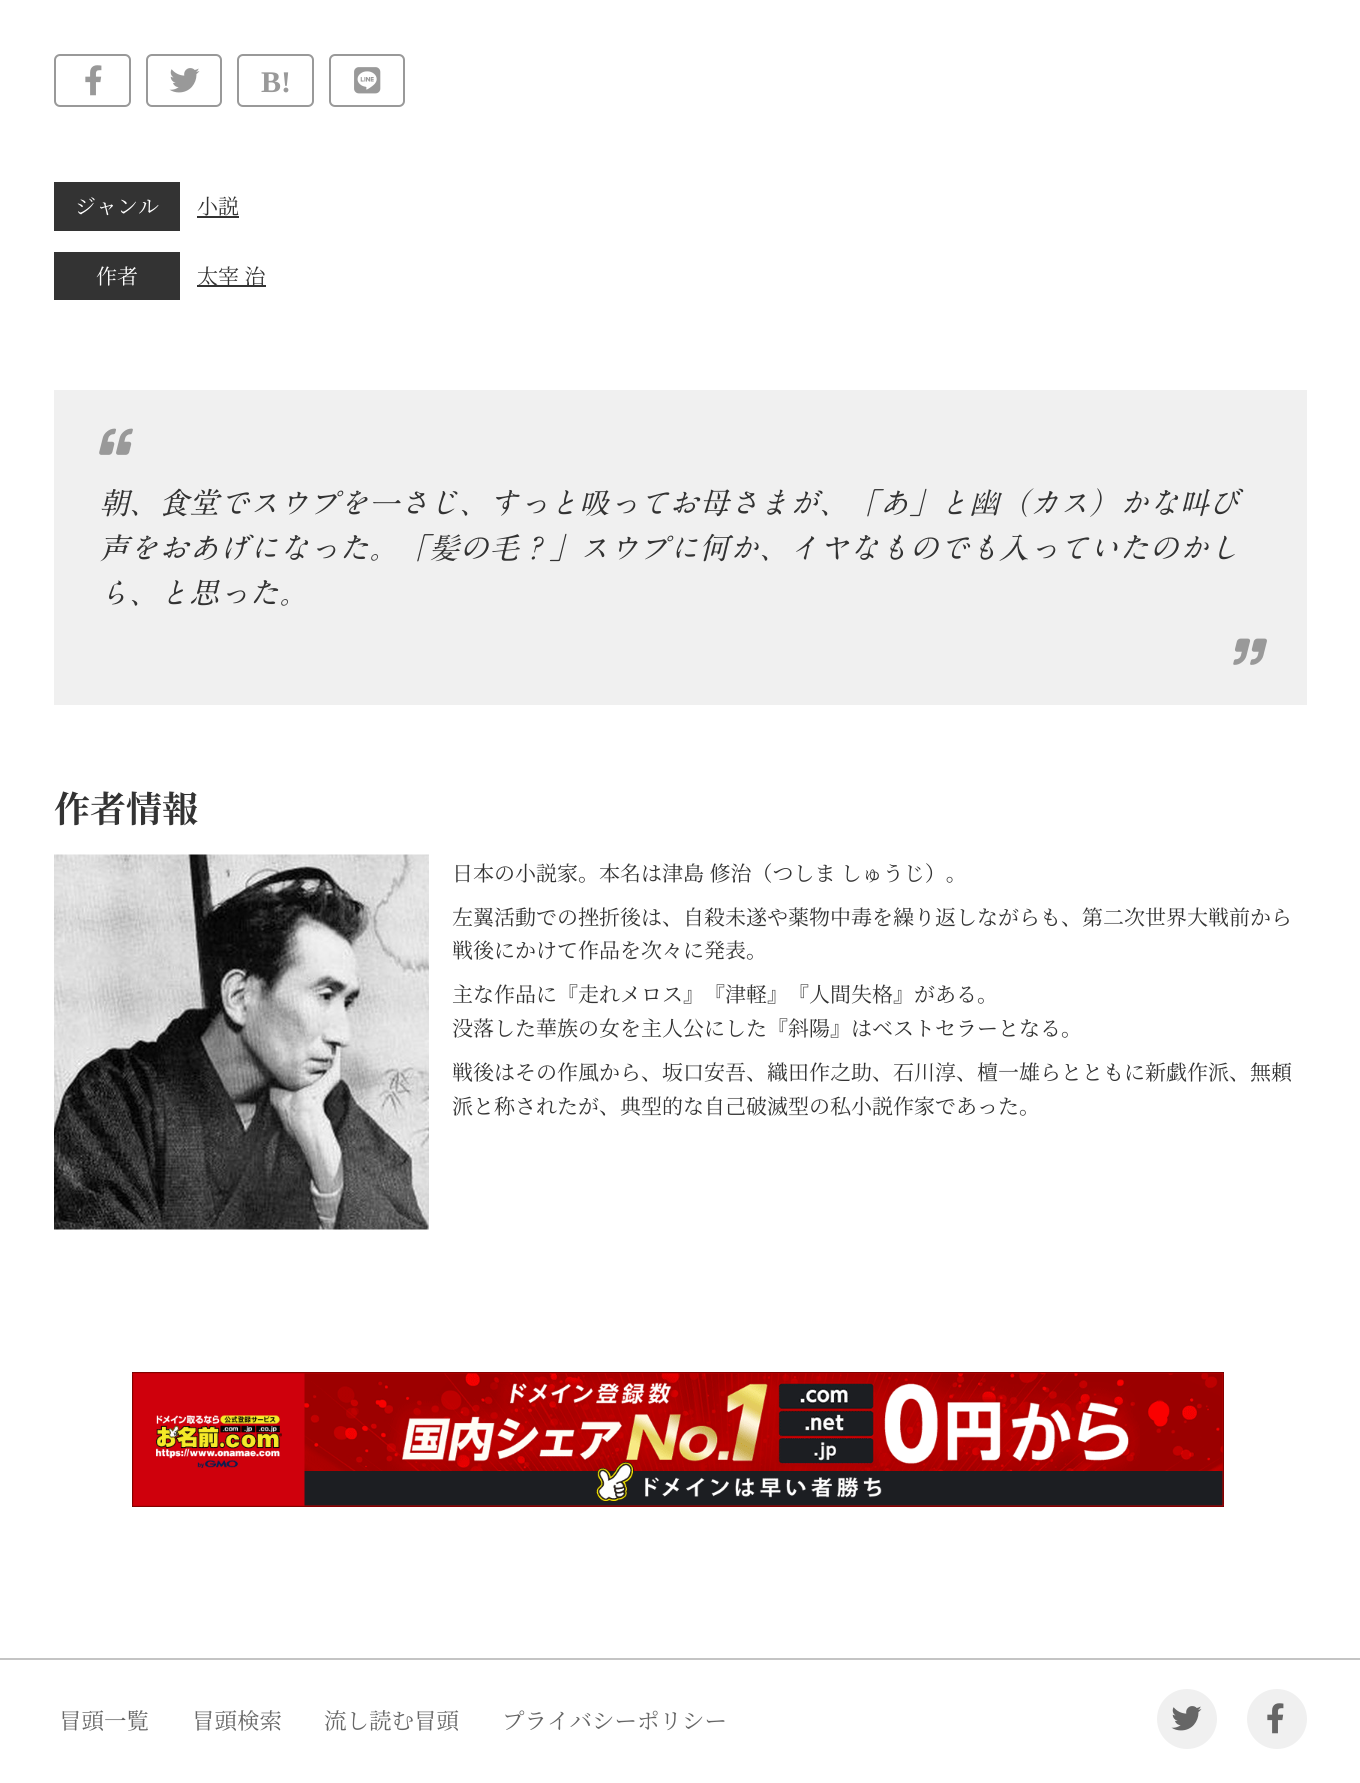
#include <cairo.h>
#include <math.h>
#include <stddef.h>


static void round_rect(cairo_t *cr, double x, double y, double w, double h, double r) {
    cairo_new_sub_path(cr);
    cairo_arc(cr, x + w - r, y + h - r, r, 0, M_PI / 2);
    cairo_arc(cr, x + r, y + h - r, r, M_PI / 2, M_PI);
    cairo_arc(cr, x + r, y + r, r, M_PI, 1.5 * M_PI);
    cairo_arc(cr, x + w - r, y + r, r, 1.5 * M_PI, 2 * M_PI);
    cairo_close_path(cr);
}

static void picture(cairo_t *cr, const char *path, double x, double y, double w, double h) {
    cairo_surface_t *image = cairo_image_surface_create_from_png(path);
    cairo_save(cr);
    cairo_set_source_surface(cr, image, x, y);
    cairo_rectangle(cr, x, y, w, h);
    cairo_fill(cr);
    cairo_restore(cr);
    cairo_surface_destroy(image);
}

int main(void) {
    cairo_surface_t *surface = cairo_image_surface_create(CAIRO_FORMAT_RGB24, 1360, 1783);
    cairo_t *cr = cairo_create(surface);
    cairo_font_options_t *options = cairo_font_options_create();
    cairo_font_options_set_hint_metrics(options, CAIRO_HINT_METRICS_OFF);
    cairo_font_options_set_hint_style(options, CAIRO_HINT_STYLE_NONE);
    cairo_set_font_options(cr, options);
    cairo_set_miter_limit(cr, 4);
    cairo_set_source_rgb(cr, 1, 1, 1);
    cairo_paint(cr);
    round_rect(cr, 55, 55, 75, 51, 5);
    cairo_set_source_rgb(cr, 0.6, 0.6, 0.6);
    cairo_stroke(cr);
    picture(cr, "img1.png", 85, 65, 17, 31);
    round_rect(cr, 147, 55, 74, 51, 5);
    cairo_stroke(cr);
    picture(cr, "img2.png", 169, 68, 31, 25);
    round_rect(cr, 238, 55, 75, 51, 5);
    cairo_stroke(cr);
    cairo_select_font_face(cr, "Liberation Serif", CAIRO_FONT_SLANT_NORMAL, CAIRO_FONT_WEIGHT_BOLD);
    cairo_set_font_size(cr, 30);
    cairo_move_to(cr, 261, 92);
    cairo_show_text(cr, "B!");
    round_rect(cr, 330, 55, 74, 51, 5);
    cairo_stroke(cr);
    picture(cr, "img3.png", 354, 67, 27, 27);
    cairo_set_source_rgb(cr, 0.2, 0.2, 0.2);
    cairo_rectangle(cr, 54, 182, 126, 49);
    cairo_fill(cr);
    cairo_select_font_face(cr, "Noto Serif JP", CAIRO_FONT_SLANT_NORMAL, CAIRO_FONT_WEIGHT_NORMAL);
    cairo_set_font_size(cr, 21);
    cairo_set_source_rgb(cr, 1, 1, 1);
    cairo_move_to(cr, 75, 214);
    cairo_show_text(cr, "ジャンル");
    cairo_set_source_rgb(cr, 0.2, 0.2, 0.2);
    cairo_move_to(cr, 197, 214);
    cairo_show_text(cr, "小説");
    cairo_rectangle(cr, 197, 216, 42, 2);
    cairo_fill(cr);
    cairo_rectangle(cr, 54, 252, 126, 48);
    cairo_fill(cr);
    cairo_set_source_rgb(cr, 1, 1, 1);
    cairo_move_to(cr, 96, 284);
    cairo_show_text(cr, "作者");
    cairo_set_source_rgb(cr, 0.2, 0.2, 0.2);
    cairo_rectangle(cr, 197, 285, 69, 2);
    cairo_fill(cr);
    cairo_move_to(cr, 197, 284);
    cairo_show_text(cr, "太宰 治");
    cairo_set_source_rgb(cr, 0.941, 0.941, 0.941);
    cairo_rectangle(cr, 54, 390, 1253, 315);
    cairo_fill(cr);
    picture(cr, "img4.png", 99, 428, 34, 27);
    cairo_select_font_face(cr, "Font", CAIRO_FONT_SLANT_ITALIC, CAIRO_FONT_WEIGHT_NORMAL);
    cairo_set_font_size(cr, 30);
    cairo_set_source_rgb(cr, 0.2, 0.2, 0.2);
    cairo_move_to(cr, 99, 514);
    cairo_show_text(cr, "朝、食堂でスウプを一さじ、すっと吸ってお母さまが、「あ」と幽（カス）かな叫び");
    cairo_move_to(cr, 99, 559);
    cairo_show_text(cr, "声をおあげになった。「髪の毛？」スウプに何か、イヤなものでも入っていたのかし");
    cairo_move_to(cr, 99, 604);
    cairo_show_text(cr, "ら、と思った。");
    picture(cr, "img5.png", 1233, 638, 34, 27);
    cairo_select_font_face(cr, "Noto Serif JP", CAIRO_FONT_SLANT_NORMAL, CAIRO_FONT_WEIGHT_BOLD);
    cairo_set_font_size(cr, 36);
    cairo_move_to(cr, 54, 822);
    cairo_show_text(cr, "作者情報");
    picture(cr, "img6.png", 54, 854, 375, 376);
    cairo_select_font_face(cr, "Noto Serif JP", CAIRO_FONT_SLANT_NORMAL, CAIRO_FONT_WEIGHT_NORMAL);
    cairo_set_font_size(cr, 21);
    cairo_move_to(cr, 452, 881);
    cairo_show_text(cr, "日本の小説家。本名は津島 修治（つしま しゅうじ）。");
    cairo_move_to(cr, 452, 925);
    cairo_show_text(cr, "左翼活動での挫折後は、自殺未遂や薬物中毒を繰り返しながらも、第二次世界大戦前から");
    cairo_move_to(cr, 452, 958);
    cairo_show_text(cr, "戦後にかけて作品を次々に発表。");
    cairo_move_to(cr, 452, 1002);
    cairo_show_text(cr, "主な作品に『走れメロス』『津軽』『人間失格』がある。");
    cairo_move_to(cr, 452, 1036);
    cairo_show_text(cr, "没落した華族の女を主人公にした『斜陽』はベストセラーとなる。");
    cairo_move_to(cr, 452, 1080);
    cairo_show_text(cr, "戦後はその作風から、坂口安吾、織田作之助、石川淳、檀一雄らとともに新戯作派、無頼");
    cairo_move_to(cr, 452, 1114);
    cairo_show_text(cr, "派と称されたが、典型的な自己破滅型の私小説作家であった。");
    picture(cr, "img7.png", 132, 1372, 1092, 135);
    cairo_set_source_rgb(cr, 0.769, 0.769, 0.769);
    cairo_rectangle(cr, 0, 1658, 1360, 2);
    cairo_fill(cr);
    cairo_set_font_size(cr, 22.5);
    cairo_set_source_rgb(cr, 0.4, 0.4, 0.4);
    cairo_move_to(cr, 59, 1729);
    cairo_show_text(cr, "冒頭一覧");
    cairo_move_to(cr, 192, 1729);
    cairo_show_text(cr, "冒頭検索");
    cairo_move_to(cr, 324, 1729);
    cairo_show_text(cr, "流し読む冒頭");
    cairo_move_to(cr, 502, 1729);
    cairo_show_text(cr, "プライバシーポリシー");
    cairo_set_source_rgb(cr, 0.941, 0.941, 0.941);
    cairo_new_path(cr);
    cairo_arc(cr, 1187, 1719, 30, 0, 2 * M_PI);
    cairo_fill(cr);
    picture(cr, "img8.png", 1171, 1706, 31, 25);
    cairo_arc(cr, 1277, 1719, 30, 0, 2 * M_PI);
    cairo_fill(cr);
    picture(cr, "img9.png", 1267, 1703, 17, 31);
    cairo_surface_write_to_png(surface, "page.png");
    cairo_font_options_destroy(options);
    cairo_destroy(cr);
    cairo_surface_destroy(surface);
    return 0;
}
